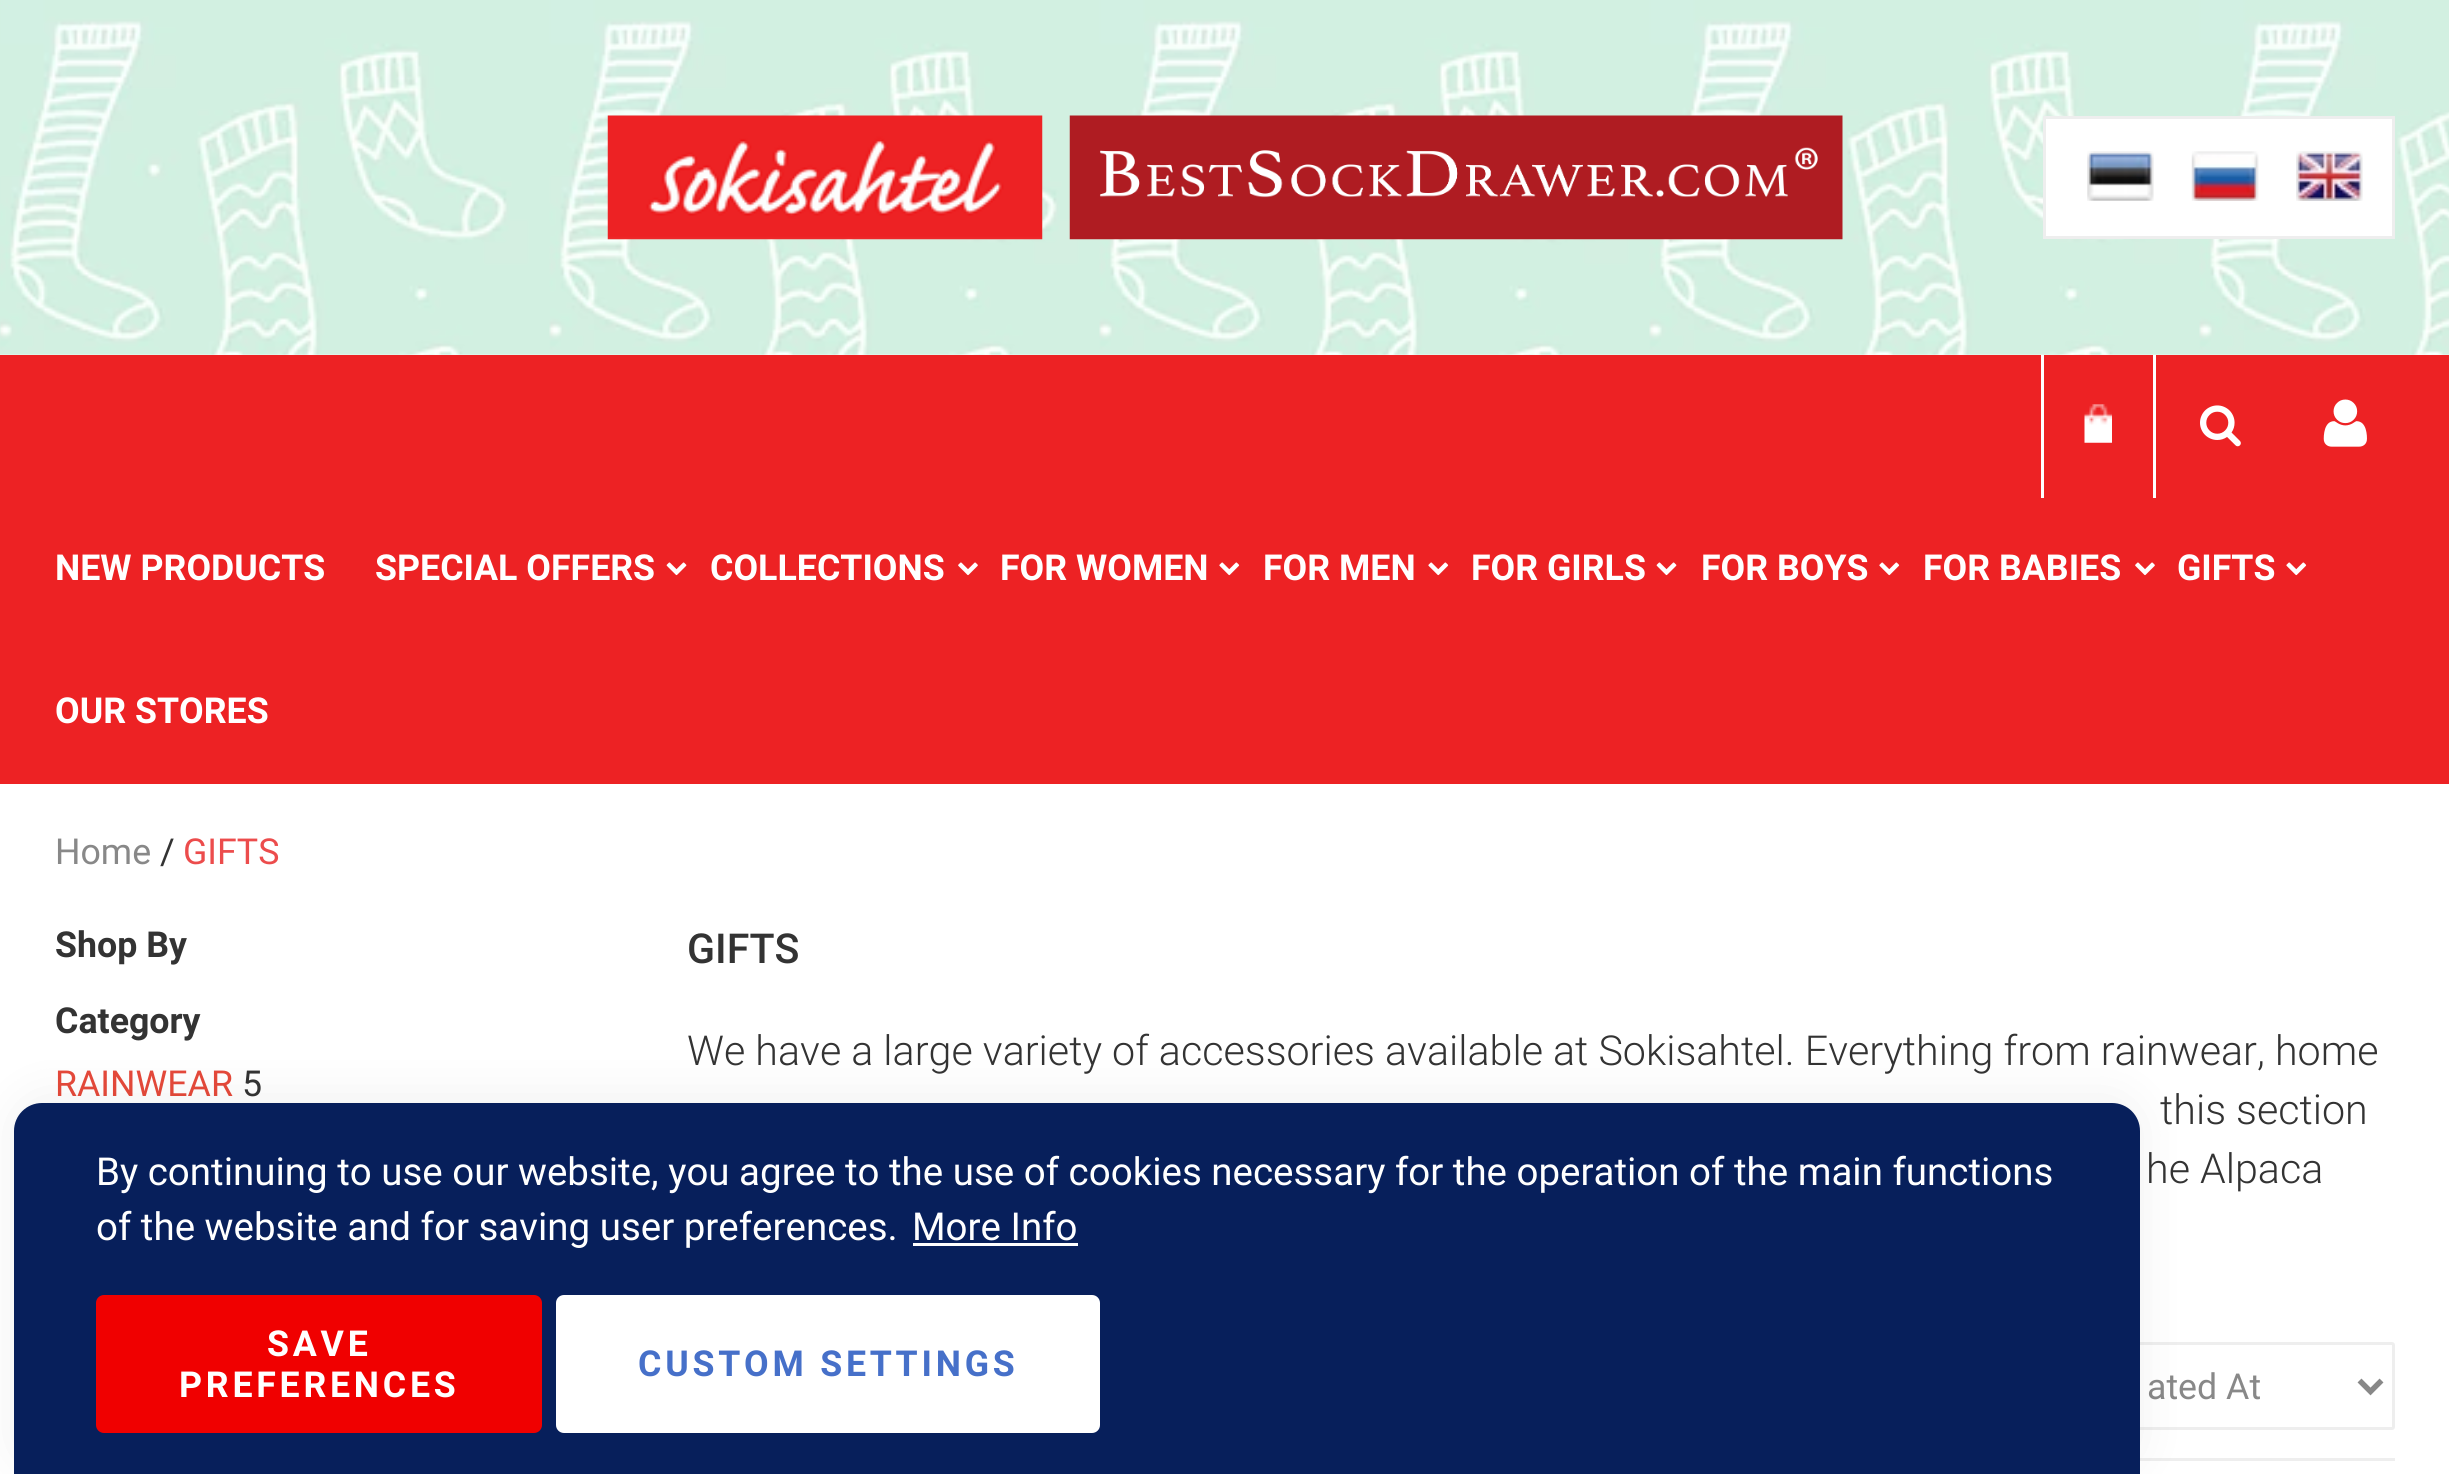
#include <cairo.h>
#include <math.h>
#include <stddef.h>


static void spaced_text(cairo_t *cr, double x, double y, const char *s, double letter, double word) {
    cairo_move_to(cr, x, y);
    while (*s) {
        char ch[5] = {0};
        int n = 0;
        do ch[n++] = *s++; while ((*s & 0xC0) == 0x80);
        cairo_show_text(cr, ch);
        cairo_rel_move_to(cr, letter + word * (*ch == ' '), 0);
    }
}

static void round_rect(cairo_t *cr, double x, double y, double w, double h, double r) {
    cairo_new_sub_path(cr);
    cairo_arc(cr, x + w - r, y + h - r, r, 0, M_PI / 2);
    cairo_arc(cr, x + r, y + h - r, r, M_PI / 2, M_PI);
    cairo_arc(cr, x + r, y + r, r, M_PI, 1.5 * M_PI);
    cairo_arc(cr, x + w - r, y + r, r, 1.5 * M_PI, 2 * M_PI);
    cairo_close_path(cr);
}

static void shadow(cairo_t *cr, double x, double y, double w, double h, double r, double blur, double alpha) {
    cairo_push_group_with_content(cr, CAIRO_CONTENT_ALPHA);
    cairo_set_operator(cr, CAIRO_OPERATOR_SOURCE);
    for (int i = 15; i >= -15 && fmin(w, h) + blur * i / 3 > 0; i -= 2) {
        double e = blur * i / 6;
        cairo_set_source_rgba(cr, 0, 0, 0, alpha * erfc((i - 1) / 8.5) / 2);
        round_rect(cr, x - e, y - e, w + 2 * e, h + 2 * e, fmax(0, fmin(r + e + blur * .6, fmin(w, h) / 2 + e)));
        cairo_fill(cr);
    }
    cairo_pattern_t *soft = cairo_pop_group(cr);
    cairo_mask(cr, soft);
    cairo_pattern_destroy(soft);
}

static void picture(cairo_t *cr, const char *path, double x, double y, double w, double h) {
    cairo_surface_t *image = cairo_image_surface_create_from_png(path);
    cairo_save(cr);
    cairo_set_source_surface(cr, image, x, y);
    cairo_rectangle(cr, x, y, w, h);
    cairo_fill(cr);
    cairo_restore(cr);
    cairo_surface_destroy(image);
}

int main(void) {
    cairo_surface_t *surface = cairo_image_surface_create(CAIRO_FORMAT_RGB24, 2449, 1474);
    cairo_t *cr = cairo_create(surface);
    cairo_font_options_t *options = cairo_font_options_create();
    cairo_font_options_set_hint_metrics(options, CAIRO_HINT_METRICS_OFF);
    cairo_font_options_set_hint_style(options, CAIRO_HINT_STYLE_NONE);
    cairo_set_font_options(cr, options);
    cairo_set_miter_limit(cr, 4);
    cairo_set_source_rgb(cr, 1, 1, 1);
    cairo_paint(cr);
    picture(cr, "img1.png", 0, 0, 2449, 355);
    picture(cr, "img2.png", 607, 115, 436, 125);
    picture(cr, "img3.png", 1069, 115, 774, 125);
    cairo_set_source_rgb(cr, 1, 1, 1);
    cairo_rectangle(cr, 2044.5, 117.5, 349, 120);
    cairo_fill_preserve(cr);
    cairo_set_source_rgb(cr, 0.933, 0.933, 0.933);
    cairo_set_line_width(cr, 3);
    cairo_stroke(cr);
    picture(cr, "img4.png", 2087, 151, 67, 50);
    picture(cr, "img5.png", 2191, 151, 68, 50);
    picture(cr, "img6.png", 2296, 151, 67, 50);
    cairo_set_source_rgb(cr, 0.929, 0.133, 0.141);
    cairo_rectangle(cr, 0, 355, 2449, 429);
    cairo_fill(cr);
    cairo_set_source_rgb(cr, 1, 1, 1);
    cairo_rectangle(cr, 2153, 355, 3, 143);
    cairo_fill(cr);
    cairo_rectangle(cr, 2041, 355, 3, 143);
    cairo_fill(cr);
    picture(cr, "img7.png", 2084, 404, 28, 39);
    picture(cr, "img8.png", 2200, 405, 41, 42);
    picture(cr, "img9.png", 2323, 399, 44, 48);
    cairo_select_font_face(cr, "Roboto", CAIRO_FONT_SLANT_NORMAL, CAIRO_FONT_WEIGHT_BOLD);
    cairo_set_font_size(cr, 35.75);
    cairo_move_to(cr, 55, 580);
    cairo_show_text(cr, "NEW PRODUCTS");
    cairo_move_to(cr, 375, 580);
    cairo_show_text(cr, "SPECIAL OFFERS");
    picture(cr, "img10.png", 666, 562, 21, 14);
    cairo_move_to(cr, 710, 580);
    cairo_show_text(cr, "COLLECTIONS");
    picture(cr, "img11.png", 958, 562, 20, 14);
    cairo_move_to(cr, 1000, 580);
    cairo_show_text(cr, "FOR WOMEN");
    picture(cr, "img12.png", 1219, 562, 21, 14);
    cairo_move_to(cr, 1263, 580);
    cairo_show_text(cr, "FOR MEN");
    picture(cr, "img12.png", 1428, 562, 21, 14);
    cairo_move_to(cr, 1471, 580);
    cairo_show_text(cr, "FOR GIRLS");
    picture(cr, "img10.png", 1656, 562, 21, 14);
    cairo_move_to(cr, 1701, 580);
    cairo_show_text(cr, "FOR BOYS");
    picture(cr, "img12.png", 1879, 562, 21, 14);
    cairo_move_to(cr, 1923, 580);
    cairo_show_text(cr, "FOR BABIES");
    picture(cr, "img11.png", 2135, 562, 20, 14);
    cairo_move_to(cr, 2177, 580);
    cairo_show_text(cr, "GIFTS");
    picture(cr, "img12.png", 2286, 562, 21, 14);
    cairo_move_to(cr, 55, 723);
    cairo_show_text(cr, "OUR STORES");
    cairo_select_font_face(cr, "Roboto", CAIRO_FONT_SLANT_NORMAL, CAIRO_FONT_WEIGHT_NORMAL);
    cairo_set_source_rgb(cr, 0.533, 0.533, 0.533);
    cairo_move_to(cr, 55, 864);
    cairo_show_text(cr, "Home");
    cairo_set_source_rgb(cr, 0.2, 0.2, 0.2);
    cairo_move_to(cr, 160, 864);
    cairo_show_text(cr, "/");
    cairo_set_source_rgb(cr, 0.922, 0.298, 0.298);
    cairo_move_to(cr, 183, 864);
    cairo_show_text(cr, "GIFTS");
    cairo_select_font_face(cr, "Roboto", CAIRO_FONT_SLANT_NORMAL, CAIRO_FONT_WEIGHT_BOLD);
    cairo_set_source_rgb(cr, 0.2, 0.2, 0.2);
    cairo_move_to(cr, 55, 957);
    cairo_show_text(cr, "Shop By");
    cairo_move_to(cr, 55, 1033);
    cairo_show_text(cr, "Category");
    cairo_select_font_face(cr, "Roboto", CAIRO_FONT_SLANT_NORMAL, CAIRO_FONT_WEIGHT_NORMAL);
    cairo_set_source_rgb(cr, 0.898, 0.286, 0.227);
    cairo_move_to(cr, 55, 1096);
    cairo_show_text(cr, "RAINWEAR");
    cairo_set_source_rgb(cr, 0.2, 0.2, 0.2);
    cairo_move_to(cr, 242, 1096);
    cairo_show_text(cr, "5");
    cairo_select_font_face(cr, "Roboto Medium", CAIRO_FONT_SLANT_NORMAL, CAIRO_FONT_WEIGHT_NORMAL);
    cairo_set_font_size(cr, 41.25);
    cairo_move_to(cr, 687, 963);
    cairo_show_text(cr, "GIFTS");
    cairo_select_font_face(cr, "Roboto Light", CAIRO_FONT_SLANT_NORMAL, CAIRO_FONT_WEIGHT_NORMAL);
    cairo_move_to(cr, 687, 1065);
    cairo_show_text(cr, "We have a large variety of accessories available at Sokisahtel. Everything from rainwear, home");
    cairo_move_to(cr, 2160, 1124);
    cairo_show_text(cr, "this section");
    cairo_move_to(cr, 2146, 1183);
    cairo_show_text(cr, "he Alpaca");
    round_rect(cr, 2055.5, 1343.5, 338, 85, 1.5);
    cairo_set_source_rgb(cr, 0.933, 0.933, 0.933);
    cairo_stroke(cr);
    cairo_new_path(cr);
    cairo_move_to(cr, 2359.5, 1380.5);
    cairo_line_to(cr, 2370.5, 1391.5);
    cairo_line_to(cr, 2381.5, 1380.5);
    cairo_set_source_rgb(cr, 0.533, 0.533, 0.533);
    cairo_set_line_width(cr, 5.5);
    cairo_stroke(cr);
    cairo_select_font_face(cr, "Roboto", CAIRO_FONT_SLANT_NORMAL, CAIRO_FONT_WEIGHT_NORMAL);
    cairo_set_font_size(cr, 35.75);
    cairo_move_to(cr, 2147, 1399);
    cairo_show_text(cr, "ated At");
    cairo_set_source_rgb(cr, 0.933, 0.933, 0.933);
    cairo_rectangle(cr, 2140, 1458, 255, 3);
    cairo_fill(cr);
    cairo_set_source_rgb(cr, 0, 0, 0);
    shadow(cr, 14, 1097, 2126, 372, 28, 25, 0.06);
    cairo_set_source_rgb(cr, 0.031, 0.122, 0.357);
    cairo_new_path(cr);
    cairo_move_to(cr, 42, 1103);
    cairo_line_to(cr, 2112, 1103);
    cairo_curve_to(cr, 2127.5, 1103, 2140, 1115.5, 2140, 1131);
    cairo_line_to(cr, 2140, 1474);
    cairo_line_to(cr, 14, 1474);
    cairo_line_to(cr, 14, 1131);
    cairo_curve_to(cr, 14, 1115.5, 26.5, 1103, 42, 1103);
    cairo_close_path(cr);
    cairo_fill(cr);
    cairo_set_font_size(cr, 38.5);
    cairo_set_source_rgb(cr, 1, 1, 1);
    cairo_move_to(cr, 96, 1185);
    cairo_show_text(cr, "By continuing to use our website, you agree to the use of cookies necessary for the operation of the main functions");
    cairo_move_to(cr, 96, 1240);
    cairo_show_text(cr, "of the website and for saving user preferences.");
    cairo_move_to(cr, 912, 1240);
    cairo_show_text(cr, "More Info");
    cairo_rectangle(cr, 913, 1243, 165, 3);
    cairo_fill(cr);
    cairo_set_source_rgb(cr, 0.941, 0, 0);
    round_rect(cr, 96, 1295, 446, 138, 8);
    cairo_fill(cr);
    cairo_select_font_face(cr, "Roboto", CAIRO_FONT_SLANT_NORMAL, CAIRO_FONT_WEIGHT_BOLD);
    cairo_set_font_size(cr, 35.75);
    cairo_set_source_rgb(cr, 1, 1, 1);
    spaced_text(cr, 267, 1356, "SAVE", 3.75, 0);
    spaced_text(cr, 179, 1397, "PREFERENCES", 3.75, 0);
    round_rect(cr, 556, 1295, 544, 138, 8);
    cairo_fill(cr);
    cairo_set_source_rgb(cr, 0.275, 0.439, 0.788);
    spaced_text(cr, 638, 1376, "CUSTOM SETTINGS", 3.75, 0);
    cairo_surface_write_to_png(surface, "page.png");
    cairo_font_options_destroy(options);
    cairo_destroy(cr);
    cairo_surface_destroy(surface);
    return 0;
}
